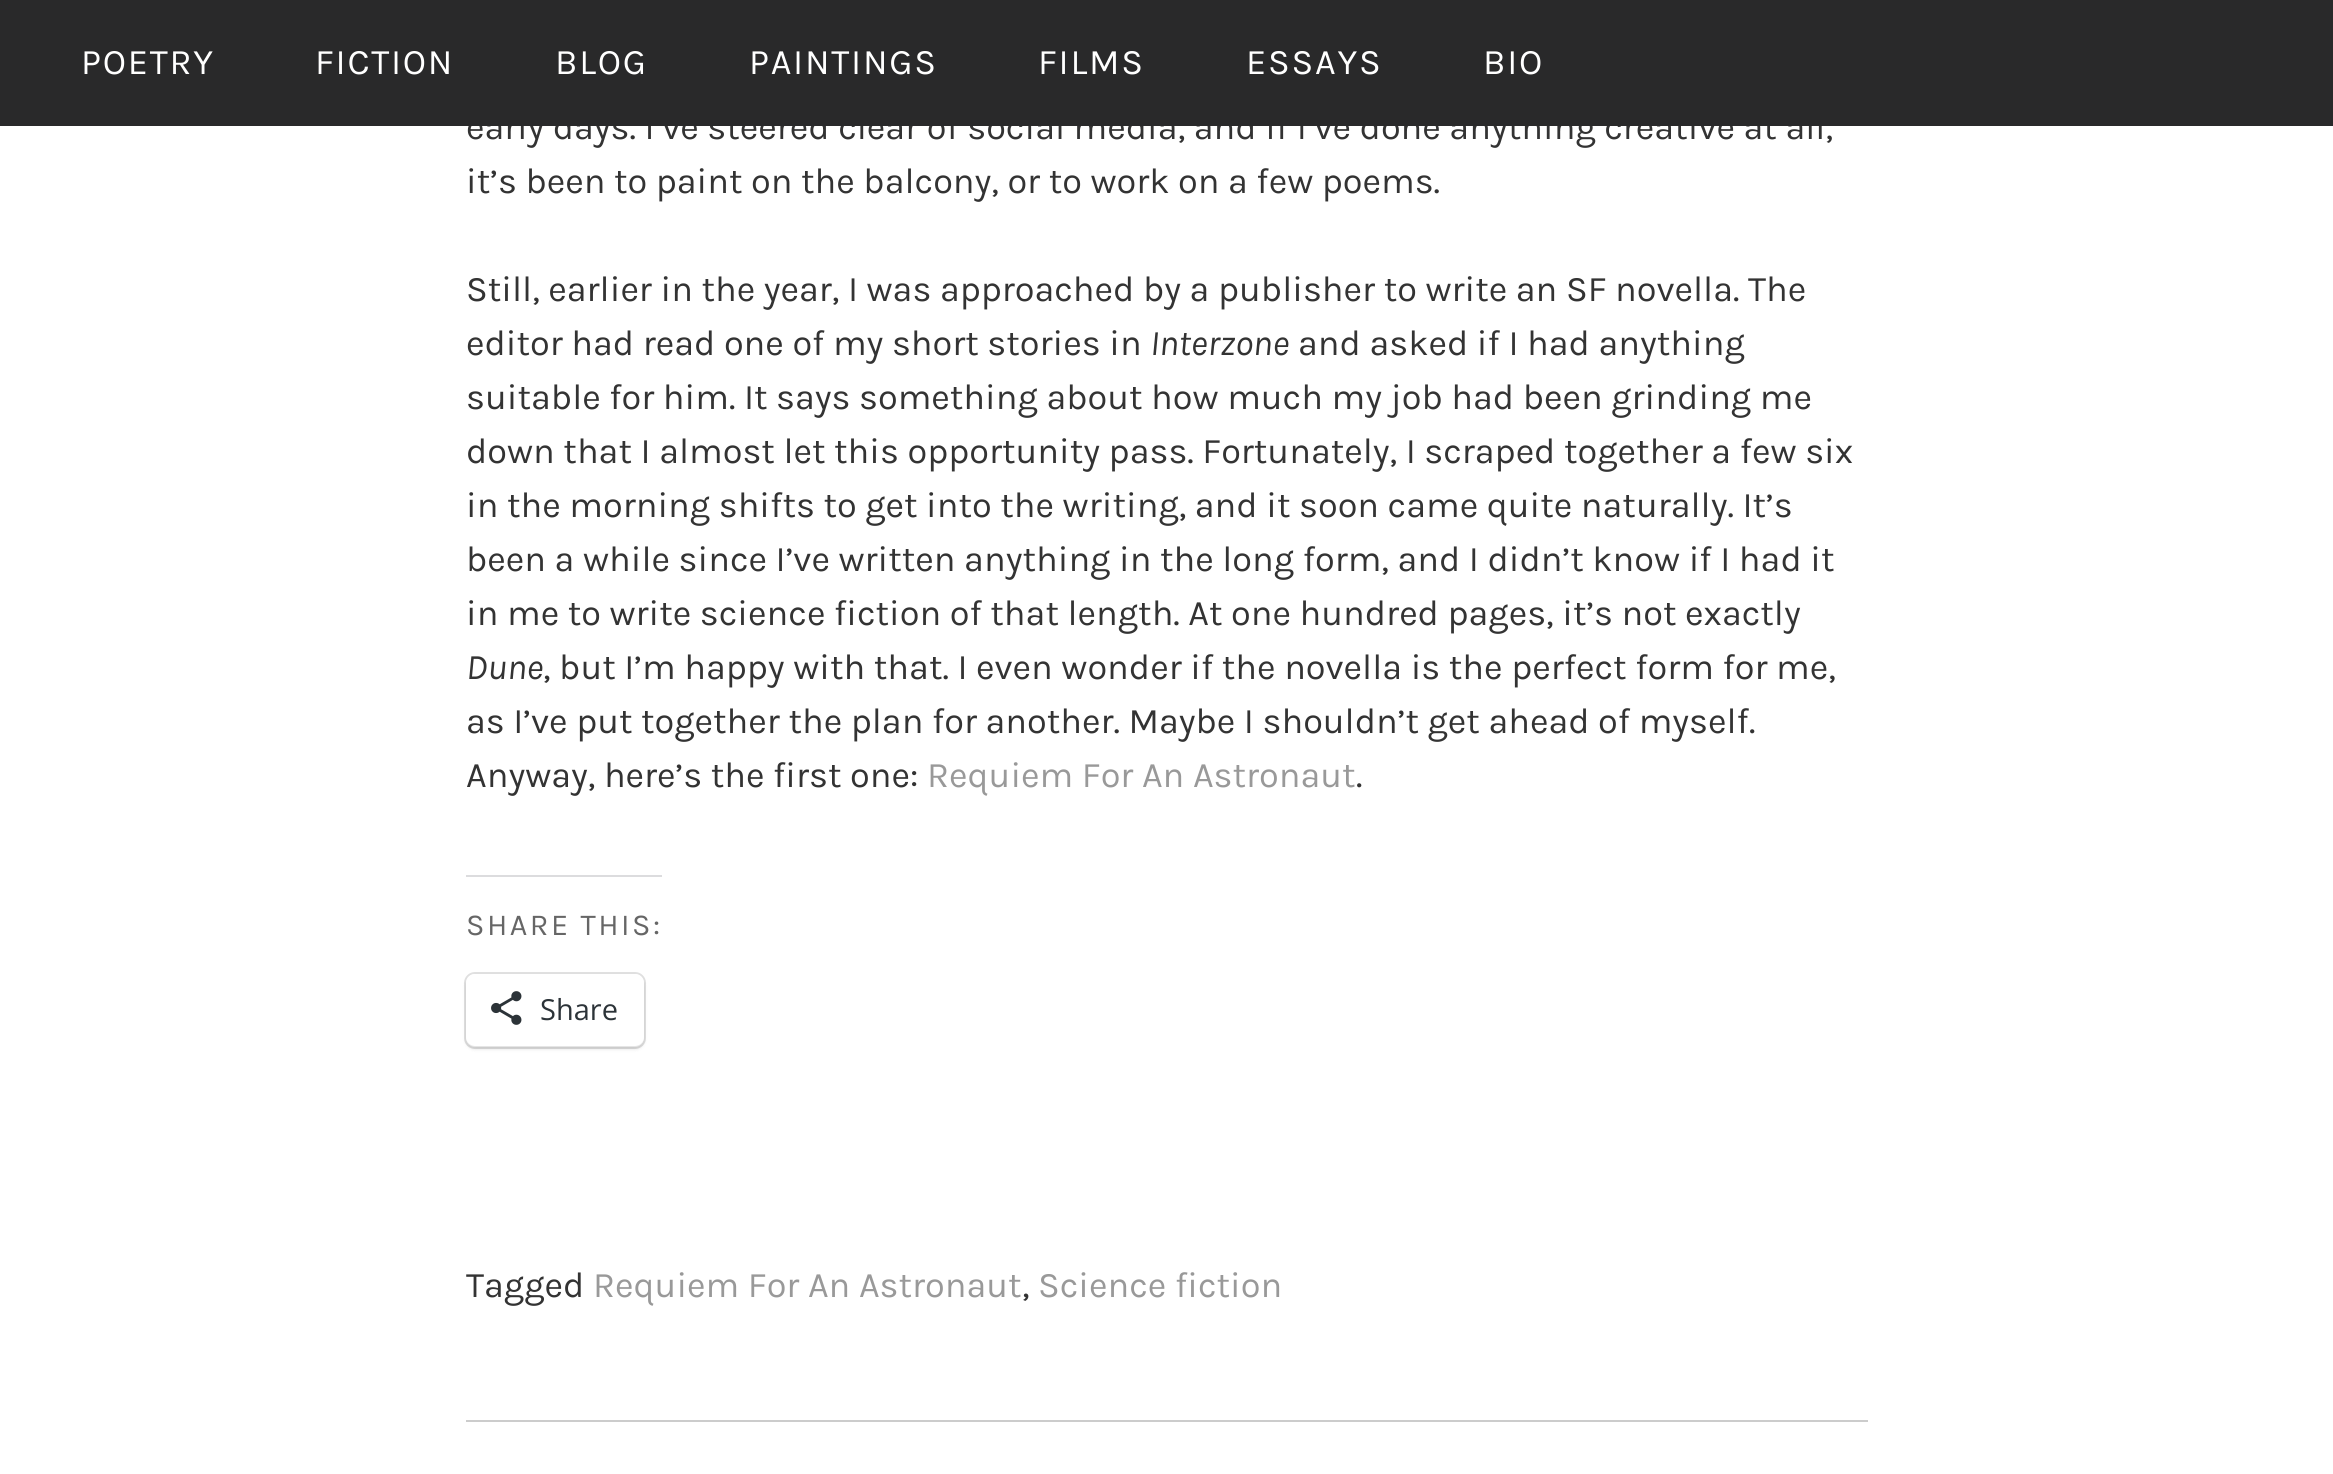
#include <cairo.h>
#include <math.h>
#include <stddef.h>


static void spaced_text(cairo_t *cr, double x, double y, const char *s, double letter, double word) {
    cairo_move_to(cr, x, y);
    while (*s) {
        char ch[5] = {0};
        int n = 0;
        do ch[n++] = *s++; while ((*s & 0xC0) == 0x80);
        cairo_show_text(cr, ch);
        cairo_rel_move_to(cr, letter + word * (*ch == ' '), 0);
    }
}

static void round_rect(cairo_t *cr, double x, double y, double w, double h, double r) {
    cairo_new_sub_path(cr);
    cairo_arc(cr, x + w - r, y + h - r, r, 0, M_PI / 2);
    cairo_arc(cr, x + r, y + h - r, r, M_PI / 2, M_PI);
    cairo_arc(cr, x + r, y + r, r, M_PI, 1.5 * M_PI);
    cairo_arc(cr, x + w - r, y + r, r, 1.5 * M_PI, 2 * M_PI);
    cairo_close_path(cr);
}

static void shadow(cairo_t *cr, double x, double y, double w, double h, double r, double blur, double alpha) {
    cairo_push_group_with_content(cr, CAIRO_CONTENT_ALPHA);
    cairo_set_operator(cr, CAIRO_OPERATOR_SOURCE);
    for (int i = 15; i >= -15 && fmin(w, h) + blur * i / 3 > 0; i -= 2) {
        double e = blur * i / 6;
        cairo_set_source_rgba(cr, 0, 0, 0, alpha * erfc((i - 1) / 8.5) / 2);
        round_rect(cr, x - e, y - e, w + 2 * e, h + 2 * e, fmax(0, fmin(r + e + blur * .6, fmin(w, h) / 2 + e)));
        cairo_fill(cr);
    }
    cairo_pattern_t *soft = cairo_pop_group(cr);
    cairo_mask(cr, soft);
    cairo_pattern_destroy(soft);
}

static void picture(cairo_t *cr, const char *path, double x, double y, double w, double h) {
    cairo_surface_t *image = cairo_image_surface_create_from_png(path);
    cairo_save(cr);
    cairo_set_source_surface(cr, image, x, y);
    cairo_rectangle(cr, x, y, w, h);
    cairo_fill(cr);
    cairo_restore(cr);
    cairo_surface_destroy(image);
}

int main(void) {
    cairo_surface_t *surface = cairo_image_surface_create(CAIRO_FORMAT_RGB24, 2333, 1474);
    cairo_t *cr = cairo_create(surface);
    cairo_font_options_t *options = cairo_font_options_create();
    cairo_font_options_set_hint_metrics(options, CAIRO_HINT_METRICS_OFF);
    cairo_font_options_set_hint_style(options, CAIRO_HINT_STYLE_NONE);
    cairo_set_font_options(cr, options);
    cairo_set_miter_limit(cr, 4);
    cairo_set_source_rgb(cr, 1, 1, 1);
    cairo_paint(cr);
    cairo_select_font_face(cr, "Karla", CAIRO_FONT_SLANT_NORMAL, CAIRO_FONT_WEIGHT_NORMAL);
    cairo_set_font_size(cr, 36);
    cairo_set_source_rgb(cr, 0.2, 0.2, 0.2);
    cairo_move_to(cr, 466, 139);
    cairo_show_text(cr, "early days. I’ve steered clear of social media, and if I’ve done anything creative at all,");
    cairo_set_source_rgb(cr, 0.161, 0.161, 0.165);
    cairo_rectangle(cr, 0, 0, 2333, 126);
    cairo_fill(cr);
    cairo_set_source_rgb(cr, 1, 1, 1);
    spaced_text(cr, 81, 74, "POETRY", 1.75, 0);
    spaced_text(cr, 315, 74, "FICTION", 1.75, 0);
    spaced_text(cr, 555, 74, "BLOG", 1.75, 0);
    spaced_text(cr, 749, 74, "PAINTINGS", 1.75, 0);
    spaced_text(cr, 1038, 74, "FILMS", 1.75, 0);
    spaced_text(cr, 1246, 74, "ESSAYS", 1.75, 0);
    spaced_text(cr, 1483, 74, "BIO", 1.75, 0);
    cairo_set_source_rgb(cr, 0.2, 0.2, 0.2);
    cairo_move_to(cr, 466, 193);
    cairo_show_text(cr, "it’s been to paint on the balcony, or to work on a few poems.");
    cairo_move_to(cr, 466, 301);
    cairo_show_text(cr, "Still, earlier in the year, I was approached by a publisher to write an SF novella. The");
    cairo_move_to(cr, 466, 355);
    cairo_show_text(cr, "editor had read one of my short stories in");
    cairo_select_font_face(cr, "Karla", CAIRO_FONT_SLANT_ITALIC, CAIRO_FONT_WEIGHT_NORMAL);
    cairo_move_to(cr, 1150, 355);
    cairo_show_text(cr, "Interzone");
    cairo_select_font_face(cr, "Karla", CAIRO_FONT_SLANT_NORMAL, CAIRO_FONT_WEIGHT_NORMAL);
    cairo_move_to(cr, 1298, 355);
    cairo_show_text(cr, "and asked if I had anything");
    cairo_move_to(cr, 466, 409);
    cairo_show_text(cr, "suitable for him. It says something about how much my job had been grinding me");
    cairo_move_to(cr, 466, 463);
    cairo_show_text(cr, "down that I almost let this opportunity pass. Fortunately, I scraped together a few six");
    cairo_move_to(cr, 466, 517);
    cairo_show_text(cr, "in the morning shifts to get into the writing, and it soon came quite naturally. It’s");
    cairo_move_to(cr, 466, 571);
    cairo_show_text(cr, "been a while since I’ve written anything in the long form, and I didn’t know if I had it");
    cairo_move_to(cr, 466, 625);
    cairo_show_text(cr, "in me to write science fiction of that length. At one hundred pages, it’s not exactly");
    cairo_select_font_face(cr, "Karla", CAIRO_FONT_SLANT_ITALIC, CAIRO_FONT_WEIGHT_NORMAL);
    cairo_move_to(cr, 466, 679);
    cairo_show_text(cr, "Dune");
    cairo_select_font_face(cr, "Karla", CAIRO_FONT_SLANT_NORMAL, CAIRO_FONT_WEIGHT_NORMAL);
    cairo_move_to(cr, 543, 679);
    cairo_show_text(cr, ", but I’m happy with that. I even wonder if the novella is the perfect form for me,");
    cairo_move_to(cr, 466, 733);
    cairo_show_text(cr, "as I’ve put together the plan for another. Maybe I shouldn’t get ahead of myself.");
    cairo_move_to(cr, 466, 787);
    cairo_show_text(cr, "Anyway, here’s the first one:");
    cairo_set_source_rgb(cr, 0.6, 0.6, 0.6);
    cairo_move_to(cr, 927, 787);
    cairo_show_text(cr, "Requiem For An Astronaut");
    cairo_set_source_rgb(cr, 0.2, 0.2, 0.2);
    cairo_move_to(cr, 1356, 787);
    cairo_show_text(cr, ".");
    cairo_set_source_rgb(cr, 0.863, 0.863, 0.871);
    cairo_rectangle(cr, 466, 875, 196, 2);
    cairo_fill(cr);
    cairo_set_font_size(cr, 30.5);
    cairo_set_source_rgb(cr, 0.4, 0.4, 0.4);
    spaced_text(cr, 466, 935, "SHARE THIS:", 2.5, 0);
    round_rect(cr, 465, 973, 180, 75, 10);
    cairo_set_source_rgb(cr, 0.878, 0.878, 0.878);
    cairo_stroke(cr);
    cairo_set_source_rgb(cr, 0, 0, 0);
    shadow(cr, 466, 977, 178, 72, 9, 2, 0.12);
    cairo_set_source_rgb(cr, 1, 1, 1);
    round_rect(cr, 466, 974, 178, 72, 9);
    cairo_fill(cr);
    picture(cr, "img1.png", 491, 991, 31, 34);
    cairo_select_font_face(cr, "Open Sans", CAIRO_FONT_SLANT_NORMAL, CAIRO_FONT_WEIGHT_NORMAL);
    cairo_set_font_size(cr, 29);
    cairo_set_source_rgb(cr, 0.173, 0.2, 0.22);
    cairo_move_to(cr, 540, 1020);
    cairo_show_text(cr, "Share");
    cairo_select_font_face(cr, "Karla", CAIRO_FONT_SLANT_NORMAL, CAIRO_FONT_WEIGHT_NORMAL);
    cairo_set_font_size(cr, 36);
    cairo_set_source_rgb(cr, 0.2, 0.2, 0.2);
    cairo_move_to(cr, 466, 1297);
    cairo_show_text(cr, "Tagged");
    cairo_set_source_rgb(cr, 0.6, 0.6, 0.6);
    cairo_move_to(cr, 593, 1297);
    cairo_show_text(cr, "Requiem For An Astronaut");
    cairo_set_source_rgb(cr, 0.2, 0.2, 0.2);
    cairo_move_to(cr, 1022, 1297);
    cairo_show_text(cr, ",");
    cairo_set_source_rgb(cr, 0.6, 0.6, 0.6);
    cairo_move_to(cr, 1038, 1297);
    cairo_show_text(cr, "Science fiction");
    cairo_set_source_rgb(cr, 0.8, 0.8, 0.8);
    cairo_rectangle(cr, 466, 1420, 1402, 2);
    cairo_fill(cr);
    cairo_surface_write_to_png(surface, "page.png");
    cairo_font_options_destroy(options);
    cairo_destroy(cr);
    cairo_surface_destroy(surface);
    return 0;
}
